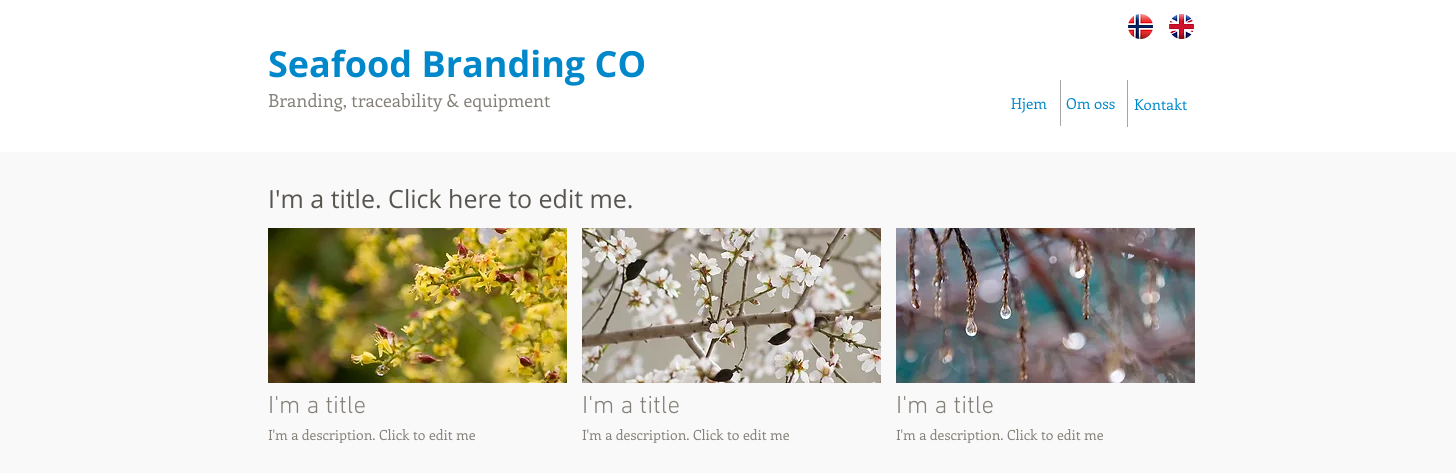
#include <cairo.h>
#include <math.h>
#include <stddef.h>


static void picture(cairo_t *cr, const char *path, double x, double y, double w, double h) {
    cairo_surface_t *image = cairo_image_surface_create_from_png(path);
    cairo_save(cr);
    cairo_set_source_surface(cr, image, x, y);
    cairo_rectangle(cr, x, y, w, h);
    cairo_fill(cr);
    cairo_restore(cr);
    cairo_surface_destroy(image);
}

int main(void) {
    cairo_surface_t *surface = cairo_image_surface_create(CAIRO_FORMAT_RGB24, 1456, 473);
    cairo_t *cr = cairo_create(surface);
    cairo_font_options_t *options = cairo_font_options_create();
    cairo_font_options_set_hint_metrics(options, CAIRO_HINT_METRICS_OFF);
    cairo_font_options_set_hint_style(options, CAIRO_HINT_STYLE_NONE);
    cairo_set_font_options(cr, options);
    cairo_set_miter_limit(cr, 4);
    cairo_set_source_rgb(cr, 0.973, 0.973, 0.973);
    cairo_paint(cr);
    cairo_set_source_rgb(cr, 1, 1, 1);
    cairo_rectangle(cr, 0, 0, 1456, 152);
    cairo_fill(cr);
    picture(cr, "img1.png", 1128, 14, 25, 25);
    picture(cr, "img2.png", 1169, 14, 25, 25);
    cairo_select_font_face(cr, "Open Sans", CAIRO_FONT_SLANT_NORMAL, CAIRO_FONT_WEIGHT_BOLD);
    cairo_set_font_size(cr, 36);
    cairo_set_source_rgb(cr, 0, 0.533, 0.796);
    cairo_move_to(cr, 268, 77);
    cairo_show_text(cr, "Seafood Branding CO");
    cairo_select_font_face(cr, "Enriqueta", CAIRO_FONT_SLANT_NORMAL, CAIRO_FONT_WEIGHT_NORMAL);
    cairo_set_font_size(cr, 18);
    cairo_set_source_rgb(cr, 0.518, 0.502, 0.475);
    cairo_move_to(cr, 268, 107);
    cairo_show_text(cr, "Branding, traceability & equipment");
    cairo_set_font_size(cr, 15);
    cairo_set_source_rgb(cr, 0, 0.533, 0.796);
    cairo_move_to(cr, 1011, 109);
    cairo_show_text(cr, "Hjem");
    cairo_set_source_rgb(cr, 0.651, 0.651, 0.651);
    cairo_rectangle(cr, 1060, 80, 1, 46);
    cairo_fill(cr);
    cairo_set_source_rgb(cr, 0, 0.533, 0.796);
    cairo_move_to(cr, 1066, 109);
    cairo_show_text(cr, "Om oss");
    cairo_set_source_rgb(cr, 0.651, 0.651, 0.651);
    cairo_rectangle(cr, 1127, 80, 1, 47);
    cairo_fill(cr);
    cairo_set_source_rgb(cr, 0, 0.533, 0.796);
    cairo_move_to(cr, 1134, 110);
    cairo_show_text(cr, "Kontakt");
    cairo_select_font_face(cr, "Open Sans", CAIRO_FONT_SLANT_NORMAL, CAIRO_FONT_WEIGHT_NORMAL);
    cairo_set_font_size(cr, 25);
    cairo_set_source_rgb(cr, 0.345, 0.333, 0.318);
    cairo_move_to(cr, 268, 208);
    cairo_show_text(cr, "I'm a title. Click here to edit me.");
    picture(cr, "img3.png", 268, 228, 299, 155);
    cairo_select_font_face(cr, "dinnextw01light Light", CAIRO_FONT_SLANT_NORMAL, CAIRO_FONT_WEIGHT_NORMAL);
    cairo_set_source_rgb(cr, 0.518, 0.502, 0.475);
    cairo_move_to(cr, 268, 413);
    cairo_show_text(cr, "I'm a title");
    cairo_save(cr);
    cairo_rectangle(cr, 268, 426, 299, 17);
    cairo_clip(cr);
    cairo_select_font_face(cr, "Enriqueta", CAIRO_FONT_SLANT_NORMAL, CAIRO_FONT_WEIGHT_NORMAL);
    cairo_set_font_size(cr, 14);
    cairo_move_to(cr, 268, 440);
    cairo_show_text(cr, "I'm a description. Click to edit me");
    cairo_restore(cr);
    picture(cr, "img4.png", 582, 228, 299, 155);
    cairo_move_to(cr, 582, 413);
    cairo_show_text(cr, "I'm a title");
    cairo_save(cr);
    cairo_rectangle(cr, 582, 426, 299, 17);
    cairo_clip(cr);
    cairo_select_font_face(cr, "Enriqueta", CAIRO_FONT_SLANT_NORMAL, CAIRO_FONT_WEIGHT_NORMAL);
    cairo_set_font_size(cr, 14);
    cairo_move_to(cr, 582, 440);
    cairo_show_text(cr, "I'm a description. Click to edit me");
    cairo_restore(cr);
    picture(cr, "img5.png", 896, 228, 299, 155);
    cairo_move_to(cr, 896, 413);
    cairo_show_text(cr, "I'm a title");
    cairo_save(cr);
    cairo_rectangle(cr, 896, 426, 299, 17);
    cairo_clip(cr);
    cairo_select_font_face(cr, "Enriqueta", CAIRO_FONT_SLANT_NORMAL, CAIRO_FONT_WEIGHT_NORMAL);
    cairo_set_font_size(cr, 14);
    cairo_move_to(cr, 896, 440);
    cairo_show_text(cr, "I'm a description. Click to edit me");
    cairo_restore(cr);
    cairo_surface_write_to_png(surface, "page.png");
    cairo_font_options_destroy(options);
    cairo_destroy(cr);
    cairo_surface_destroy(surface);
    return 0;
}
